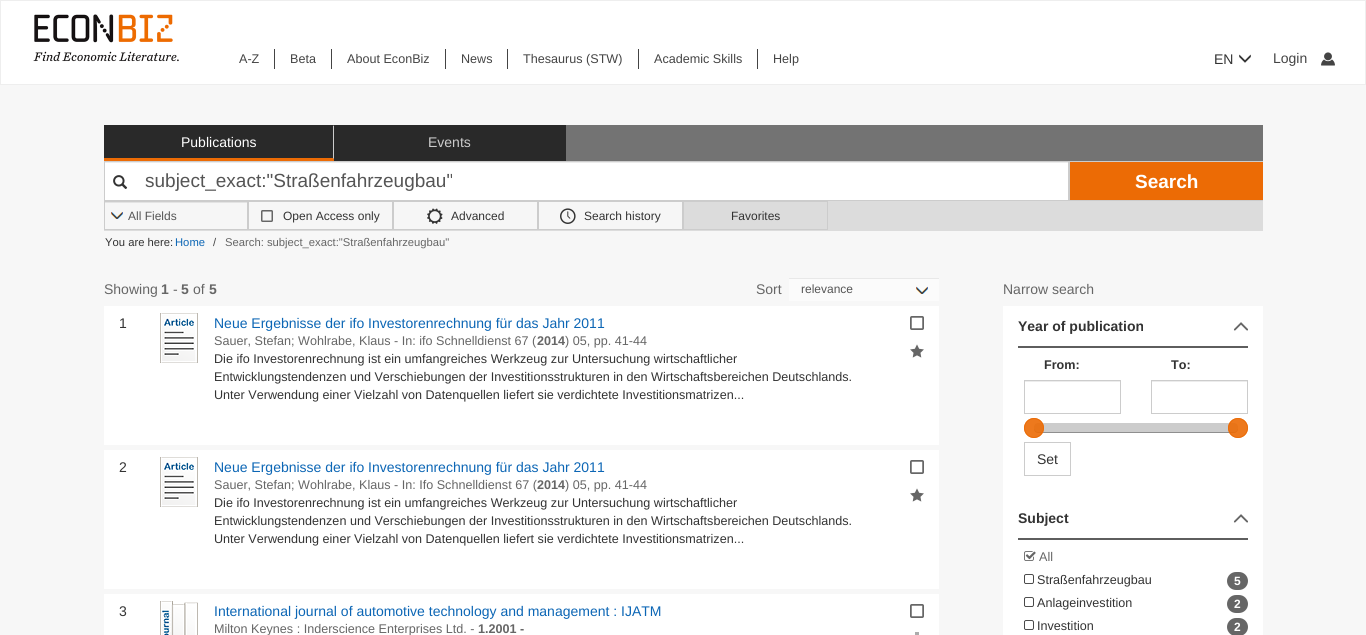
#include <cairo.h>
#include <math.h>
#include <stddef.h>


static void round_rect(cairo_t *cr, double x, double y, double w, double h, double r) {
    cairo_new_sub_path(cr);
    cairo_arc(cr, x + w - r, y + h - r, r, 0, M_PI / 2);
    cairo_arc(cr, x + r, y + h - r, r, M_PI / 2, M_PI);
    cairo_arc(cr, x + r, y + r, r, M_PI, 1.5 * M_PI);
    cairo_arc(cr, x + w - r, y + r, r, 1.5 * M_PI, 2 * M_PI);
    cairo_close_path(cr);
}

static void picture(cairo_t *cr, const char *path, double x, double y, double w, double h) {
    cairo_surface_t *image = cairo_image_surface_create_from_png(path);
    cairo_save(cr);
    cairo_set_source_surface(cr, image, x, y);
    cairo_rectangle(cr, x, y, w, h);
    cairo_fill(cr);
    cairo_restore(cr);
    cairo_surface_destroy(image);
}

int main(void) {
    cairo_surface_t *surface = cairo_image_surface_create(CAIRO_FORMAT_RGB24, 1366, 635);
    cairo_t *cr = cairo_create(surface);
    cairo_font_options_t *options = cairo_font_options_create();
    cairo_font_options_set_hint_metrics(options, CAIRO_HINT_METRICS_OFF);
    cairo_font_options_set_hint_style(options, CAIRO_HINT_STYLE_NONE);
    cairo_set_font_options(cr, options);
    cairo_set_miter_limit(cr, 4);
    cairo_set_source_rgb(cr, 0.965, 0.965, 0.965);
    cairo_paint(cr);
    cairo_set_source_rgb(cr, 1, 1, 1);
    cairo_rectangle(cr, 0.5, 0.5, 1365, 84);
    cairo_fill_preserve(cr);
    cairo_set_source_rgb(cr, 0.933, 0.933, 0.933);
    cairo_set_line_width(cr, 1);
    cairo_stroke(cr);
    picture(cr, "img1.png", 33, 14, 146, 48);
    cairo_select_font_face(cr, "Liberation Sans", CAIRO_FONT_SLANT_NORMAL, CAIRO_FONT_WEIGHT_NORMAL);
    cairo_set_font_size(cr, 12.6);
    cairo_set_source_rgb(cr, 0.267, 0.267, 0.267);
    cairo_move_to(cr, 239, 63);
    cairo_show_text(cr, "A-Z");
    cairo_rectangle(cr, 274, 49, 1, 20);
    cairo_fill(cr);
    cairo_move_to(cr, 290, 63);
    cairo_show_text(cr, "Beta");
    cairo_rectangle(cr, 331, 49, 1, 20);
    cairo_fill(cr);
    cairo_move_to(cr, 347, 63);
    cairo_show_text(cr, "About EconBiz");
    cairo_rectangle(cr, 445, 49, 1, 20);
    cairo_fill(cr);
    cairo_move_to(cr, 461, 63);
    cairo_show_text(cr, "News");
    cairo_rectangle(cr, 507, 49, 1, 20);
    cairo_fill(cr);
    cairo_move_to(cr, 523, 63);
    cairo_show_text(cr, "Thesaurus (STW)");
    cairo_rectangle(cr, 638, 49, 1, 20);
    cairo_fill(cr);
    cairo_move_to(cr, 654, 63);
    cairo_show_text(cr, "Academic Skills");
    cairo_rectangle(cr, 757, 49, 1, 20);
    cairo_fill(cr);
    cairo_move_to(cr, 773, 63);
    cairo_show_text(cr, "Help");
    cairo_set_font_size(cr, 14);
    cairo_set_source_rgb(cr, 0.2, 0.2, 0.2);
    cairo_move_to(cr, 1214, 64);
    cairo_show_text(cr, "EN");
    picture(cr, "img2.png", 1239, 54, 12, 9);
    cairo_set_source_rgb(cr, 0.267, 0.267, 0.267);
    cairo_move_to(cr, 1273, 63);
    cairo_show_text(cr, "Login");
    picture(cr, "img3.png", 1321, 52, 14, 14);
    cairo_set_source_rgb(cr, 0.451, 0.451, 0.451);
    cairo_rectangle(cr, 333, 125, 930, 36);
    cairo_fill(cr);
    cairo_set_source_rgb(cr, 0.161, 0.161, 0.161);
    cairo_rectangle(cr, 104, 126, 229, 32);
    cairo_fill(cr);
    cairo_new_path(cr);
    cairo_move_to(cr, 104, 125);
    cairo_line_to(cr, 335, 125);
    cairo_line_to(cr, 333, 126);
    cairo_line_to(cr, 104, 126);
    cairo_close_path(cr);
    cairo_fill(cr);
    cairo_set_source_rgb(cr, 0.8, 0.8, 0.8);
    cairo_new_path(cr);
    cairo_move_to(cr, 335, 125);
    cairo_line_to(cr, 335, 161);
    cairo_line_to(cr, 333, 158);
    cairo_line_to(cr, 333, 126);
    cairo_close_path(cr);
    cairo_fill(cr);
    cairo_set_source_rgb(cr, 0.922, 0.42, 0.02);
    cairo_new_path(cr);
    cairo_move_to(cr, 335, 161);
    cairo_line_to(cr, 104, 161);
    cairo_line_to(cr, 104, 158);
    cairo_line_to(cr, 333, 158);
    cairo_close_path(cr);
    cairo_fill(cr);
    cairo_set_source_rgb(cr, 1, 1, 1);
    cairo_move_to(cr, 181, 147);
    cairo_show_text(cr, "Publications");
    cairo_set_source_rgb(cr, 0.161, 0.161, 0.161);
    cairo_rectangle(cr, 334, 126, 230, 32);
    cairo_fill(cr);
    cairo_rectangle(cr, 334, 125, 232, 1);
    cairo_fill(cr);
    cairo_rectangle(cr, 564, 125, 2, 36);
    cairo_fill(cr);
    cairo_rectangle(cr, 334, 158, 232, 3);
    cairo_fill(cr);
    cairo_set_source_rgb(cr, 0.8, 0.8, 0.8);
    cairo_move_to(cr, 428, 147);
    cairo_show_text(cr, "Events");
    cairo_set_source_rgb(cr, 1, 1, 1);
    cairo_rectangle(cr, 105, 163, 963, 37);
    cairo_fill(cr);
    cairo_set_source_rgb(cr, 0.925, 0.925, 0.925);
    cairo_rectangle(cr, 105, 162, 963, 1);
    cairo_fill(cr);
    cairo_rectangle(cr, 104.5, 161.5, 964, 39);
    cairo_set_source_rgb(cr, 0.8, 0.8, 0.8);
    cairo_stroke(cr);
    picture(cr, "img4.png", 113, 175, 15, 14);
    cairo_set_font_size(cr, 19);
    cairo_set_source_rgb(cr, 0.333, 0.333, 0.333);
    cairo_move_to(cr, 145, 187);
    cairo_show_text(cr, "subject_exact:\"Straßenfahrzeugbau\"");
    cairo_set_source_rgb(cr, 0.922, 0.42, 0.02);
    cairo_rectangle(cr, 1070, 162, 193, 38);
    cairo_fill(cr);
    cairo_set_source_rgb(cr, 0.8, 0.8, 0.8);
    cairo_rectangle(cr, 1069, 161, 194, 1);
    cairo_fill(cr);
    cairo_rectangle(cr, 1069, 200, 194, 1);
    cairo_fill(cr);
    cairo_rectangle(cr, 1069, 161, 1, 40);
    cairo_fill(cr);
    cairo_select_font_face(cr, "Liberation Sans", CAIRO_FONT_SLANT_NORMAL, CAIRO_FONT_WEIGHT_BOLD);
    cairo_set_source_rgb(cr, 1, 1, 1);
    cairo_move_to(cr, 1135, 188);
    cairo_show_text(cr, "Search");
    cairo_set_source_rgb(cr, 0.863, 0.863, 0.863);
    cairo_rectangle(cr, 104, 201, 1159, 30);
    cairo_fill(cr);
    cairo_set_source_rgb(cr, 0.961, 0.961, 0.961);
    cairo_rectangle(cr, 105, 203, 142, 26);
    cairo_fill(cr);
    cairo_rectangle(cr, 104.5, 201.5, 143, 28);
    cairo_set_source_rgb(cr, 0.8, 0.8, 0.8);
    cairo_stroke(cr);
    picture(cr, "img5.png", 111, 212, 12, 7);
    cairo_set_source_rgb(cr, 0.89, 0.89, 0.89);
    cairo_rectangle(cr, 105, 202, 142, 1);
    cairo_fill(cr);
    cairo_select_font_face(cr, "Liberation Sans", CAIRO_FONT_SLANT_NORMAL, CAIRO_FONT_WEIGHT_NORMAL);
    cairo_set_font_size(cr, 12);
    cairo_set_source_rgb(cr, 0.333, 0.333, 0.333);
    cairo_move_to(cr, 128, 220);
    cairo_show_text(cr, "All Fields");
    cairo_set_source_rgb(cr, 0.961, 0.961, 0.961);
    cairo_rectangle(cr, 248.5, 201.5, 144, 28);
    cairo_fill_preserve(cr);
    cairo_set_source_rgb(cr, 0.8, 0.8, 0.8);
    cairo_stroke(cr);
    picture(cr, "img6.png", 261, 210, 12, 12);
    cairo_set_source_rgb(cr, 0.2, 0.2, 0.2);
    cairo_move_to(cr, 283, 220);
    cairo_show_text(cr, "Open Access only");
    cairo_set_source_rgb(cr, 0.961, 0.961, 0.961);
    cairo_rectangle(cr, 393.5, 201.5, 144, 28);
    cairo_fill_preserve(cr);
    cairo_set_source_rgb(cr, 0.8, 0.8, 0.8);
    cairo_stroke(cr);
    picture(cr, "img7.png", 427, 208, 16, 16);
    cairo_set_source_rgb(cr, 0.2, 0.2, 0.2);
    cairo_move_to(cr, 451, 220);
    cairo_show_text(cr, "Advanced");
    cairo_set_source_rgb(cr, 0.961, 0.961, 0.961);
    cairo_rectangle(cr, 538.5, 201.5, 144, 28);
    cairo_fill_preserve(cr);
    cairo_set_source_rgb(cr, 0.8, 0.8, 0.8);
    cairo_stroke(cr);
    picture(cr, "img8.png", 560, 208, 16, 16);
    cairo_set_source_rgb(cr, 0.2, 0.2, 0.2);
    cairo_move_to(cr, 584, 220);
    cairo_show_text(cr, "Search history");
    cairo_rectangle(cr, 683.5, 201.5, 144, 28);
    cairo_set_source_rgb(cr, 0.8, 0.8, 0.8);
    cairo_stroke(cr);
    cairo_set_source_rgb(cr, 0.2, 0.2, 0.2);
    cairo_move_to(cr, 731, 220);
    cairo_show_text(cr, "Favorites");
    cairo_set_font_size(cr, 11.25);
    cairo_move_to(cr, 105, 246);
    cairo_show_text(cr, "You are here:");
    cairo_set_source_rgb(cr, 0.047, 0.4, 0.71);
    cairo_move_to(cr, 175, 246);
    cairo_show_text(cr, "Home");
    cairo_set_source_rgb(cr, 0.267, 0.267, 0.267);
    cairo_move_to(cr, 213, 246);
    cairo_show_text(cr, "/");
    cairo_set_source_rgb(cr, 0.4, 0.4, 0.4);
    cairo_move_to(cr, 225, 246);
    cairo_show_text(cr, "Search: subject_exact:\"Straßenfahrzeugbau\"");
    cairo_set_font_size(cr, 14);
    cairo_move_to(cr, 104, 294);
    cairo_show_text(cr, "Showing");
    cairo_select_font_face(cr, "Liberation Sans", CAIRO_FONT_SLANT_NORMAL, CAIRO_FONT_WEIGHT_BOLD);
    cairo_move_to(cr, 161, 294);
    cairo_show_text(cr, "1");
    cairo_select_font_face(cr, "Liberation Sans", CAIRO_FONT_SLANT_NORMAL, CAIRO_FONT_WEIGHT_NORMAL);
    cairo_move_to(cr, 173, 294);
    cairo_show_text(cr, "-");
    cairo_select_font_face(cr, "Liberation Sans", CAIRO_FONT_SLANT_NORMAL, CAIRO_FONT_WEIGHT_BOLD);
    cairo_move_to(cr, 181, 294);
    cairo_show_text(cr, "5");
    cairo_select_font_face(cr, "Liberation Sans", CAIRO_FONT_SLANT_NORMAL, CAIRO_FONT_WEIGHT_NORMAL);
    cairo_move_to(cr, 193, 294);
    cairo_show_text(cr, "of");
    cairo_select_font_face(cr, "Liberation Sans", CAIRO_FONT_SLANT_NORMAL, CAIRO_FONT_WEIGHT_BOLD);
    cairo_move_to(cr, 209, 294);
    cairo_show_text(cr, "5");
    cairo_select_font_face(cr, "Liberation Sans", CAIRO_FONT_SLANT_NORMAL, CAIRO_FONT_WEIGHT_NORMAL);
    cairo_move_to(cr, 756, 294);
    cairo_show_text(cr, "Sort");
    cairo_set_source_rgb(cr, 0.984, 0.984, 0.984);
    cairo_rectangle(cr, 789, 279, 150, 22);
    cairo_fill(cr);
    picture(cr, "img9.png", 916, 286, 12, 8);
    cairo_set_source_rgb(cr, 0.91, 0.91, 0.91);
    cairo_rectangle(cr, 789, 278, 150, 1);
    cairo_fill(cr);
    cairo_set_font_size(cr, 12);
    cairo_set_source_rgb(cr, 0.333, 0.333, 0.333);
    cairo_move_to(cr, 801, 293);
    cairo_show_text(cr, "relevance");
    cairo_set_source_rgb(cr, 1, 1, 1);
    cairo_rectangle(cr, 104, 306, 835, 139);
    cairo_fill(cr);
    cairo_set_font_size(cr, 14);
    cairo_set_source_rgb(cr, 0.2, 0.2, 0.2);
    cairo_move_to(cr, 119, 328);
    cairo_show_text(cr, "1");
    picture(cr, "img10.png", 160, 313, 38, 50);
    cairo_set_source_rgb(cr, 0.047, 0.4, 0.71);
    cairo_move_to(cr, 214, 328);
    cairo_show_text(cr, "Neue Ergebnisse der ifo Investorenrechnung für das Jahr 2011");
    cairo_set_font_size(cr, 12.6);
    cairo_set_source_rgb(cr, 0.4, 0.4, 0.4);
    cairo_move_to(cr, 214, 345);
    cairo_show_text(cr, "Sauer, Stefan; Wohlrabe, Klaus - In: ifo Schnelldienst 67 (");
    cairo_select_font_face(cr, "Liberation Sans", CAIRO_FONT_SLANT_NORMAL, CAIRO_FONT_WEIGHT_BOLD);
    cairo_move_to(cr, 537, 345);
    cairo_show_text(cr, "2014");
    cairo_select_font_face(cr, "Liberation Sans", CAIRO_FONT_SLANT_NORMAL, CAIRO_FONT_WEIGHT_NORMAL);
    cairo_move_to(cr, 565, 345);
    cairo_show_text(cr, ") 05, pp. 41-44");
    cairo_set_source_rgb(cr, 0.2, 0.2, 0.2);
    cairo_move_to(cr, 214, 363);
    cairo_show_text(cr, "Die ifo Investorenrechnung ist ein umfangreiches Werkzeug zur Untersuchung wirtschaftlicher");
    cairo_move_to(cr, 214, 381);
    cairo_show_text(cr, "Entwicklungstendenzen und Verschiebungen der Investitionsstrukturen in den Wirtschaftsbereichen Deutschlands.");
    cairo_move_to(cr, 214, 399);
    cairo_show_text(cr, "Unter Verwendung einer Vielzahl von Datenquellen liefert sie verdichtete Investitionsmatrizen...");
    picture(cr, "img11.png", 910, 316, 14, 14);
    picture(cr, "img12.png", 910, 344, 14, 14);
    cairo_set_source_rgb(cr, 1, 1, 1);
    cairo_rectangle(cr, 104, 450, 835, 139);
    cairo_fill(cr);
    cairo_set_font_size(cr, 14);
    cairo_set_source_rgb(cr, 0.2, 0.2, 0.2);
    cairo_move_to(cr, 119, 472);
    cairo_show_text(cr, "2");
    picture(cr, "img10.png", 160, 457, 38, 50);
    cairo_set_source_rgb(cr, 0.047, 0.4, 0.71);
    cairo_move_to(cr, 214, 472);
    cairo_show_text(cr, "Neue Ergebnisse der ifo Investorenrechnung für das Jahr 2011");
    cairo_set_font_size(cr, 12.6);
    cairo_set_source_rgb(cr, 0.4, 0.4, 0.4);
    cairo_move_to(cr, 214, 489);
    cairo_show_text(cr, "Sauer, Stefan; Wohlrabe, Klaus - In: Ifo Schnelldienst 67 (");
    cairo_select_font_face(cr, "Liberation Sans", CAIRO_FONT_SLANT_NORMAL, CAIRO_FONT_WEIGHT_BOLD);
    cairo_move_to(cr, 537, 489);
    cairo_show_text(cr, "2014");
    cairo_select_font_face(cr, "Liberation Sans", CAIRO_FONT_SLANT_NORMAL, CAIRO_FONT_WEIGHT_NORMAL);
    cairo_move_to(cr, 565, 489);
    cairo_show_text(cr, ") 05, pp. 41-44");
    cairo_set_source_rgb(cr, 0.2, 0.2, 0.2);
    cairo_move_to(cr, 214, 507);
    cairo_show_text(cr, "Die ifo Investorenrechnung ist ein umfangreiches Werkzeug zur Untersuchung wirtschaftlicher");
    cairo_move_to(cr, 214, 525);
    cairo_show_text(cr, "Entwicklungstendenzen und Verschiebungen der Investitionsstrukturen in den Wirtschaftsbereichen Deutschlands.");
    cairo_move_to(cr, 214, 543);
    cairo_show_text(cr, "Unter Verwendung einer Vielzahl von Datenquellen liefert sie verdichtete Investitionsmatrizen...");
    picture(cr, "img11.png", 910, 460, 14, 14);
    picture(cr, "img12.png", 910, 488, 14, 14);
    cairo_set_source_rgb(cr, 1, 1, 1);
    cairo_rectangle(cr, 104, 594, 835, 41);
    cairo_fill(cr);
    cairo_set_font_size(cr, 14);
    cairo_set_source_rgb(cr, 0.2, 0.2, 0.2);
    cairo_move_to(cr, 119, 616);
    cairo_show_text(cr, "3");
    picture(cr, "img13.png", 160, 601, 38, 34);
    cairo_set_source_rgb(cr, 0.047, 0.4, 0.71);
    cairo_move_to(cr, 214, 616);
    cairo_show_text(cr, "International journal of automotive technology and management : IJATM");
    cairo_set_font_size(cr, 12.6);
    cairo_set_source_rgb(cr, 0.4, 0.4, 0.4);
    cairo_move_to(cr, 214, 633);
    cairo_show_text(cr, "Milton Keynes : Inderscience Enterprises Ltd. -");
    cairo_select_font_face(cr, "Liberation Sans", CAIRO_FONT_SLANT_NORMAL, CAIRO_FONT_WEIGHT_BOLD);
    cairo_move_to(cr, 478, 633);
    cairo_show_text(cr, "1.2001 -");
    picture(cr, "img11.png", 910, 604, 14, 14);
    cairo_set_source_rgb(cr, 0.675, 0.675, 0.675);
    cairo_rectangle(cr, 915, 632, 4, 3);
    cairo_fill(cr);
    cairo_select_font_face(cr, "Liberation Sans", CAIRO_FONT_SLANT_NORMAL, CAIRO_FONT_WEIGHT_NORMAL);
    cairo_set_font_size(cr, 14);
    cairo_set_source_rgb(cr, 0.4, 0.4, 0.4);
    cairo_move_to(cr, 1003, 294);
    cairo_show_text(cr, "Narrow search");
    cairo_set_source_rgb(cr, 1, 1, 1);
    cairo_rectangle(cr, 1003, 306, 260, 329);
    cairo_fill(cr);
    cairo_set_source_rgb(cr, 0.369, 0.369, 0.369);
    cairo_rectangle(cr, 1018, 346, 230, 2);
    cairo_fill(cr);
    cairo_select_font_face(cr, "Liberation Sans", CAIRO_FONT_SLANT_NORMAL, CAIRO_FONT_WEIGHT_BOLD);
    cairo_set_source_rgb(cr, 0.2, 0.2, 0.2);
    cairo_move_to(cr, 1018, 331);
    cairo_show_text(cr, "Year of publication");
    picture(cr, "img14.png", 1233, 322, 15, 9);
    cairo_set_font_size(cr, 12.6);
    cairo_move_to(cr, 1044, 369);
    cairo_show_text(cr, "From:");
    cairo_set_source_rgb(cr, 0.925, 0.925, 0.925);
    cairo_rectangle(cr, 1025, 381, 95, 1);
    cairo_fill(cr);
    cairo_rectangle(cr, 1024.5, 380.5, 96, 33);
    cairo_set_source_rgb(cr, 0.8, 0.8, 0.8);
    cairo_stroke(cr);
    cairo_set_source_rgb(cr, 0.2, 0.2, 0.2);
    cairo_move_to(cr, 1171, 369);
    cairo_show_text(cr, "To:");
    cairo_set_source_rgb(cr, 0.925, 0.925, 0.925);
    cairo_rectangle(cr, 1152, 381, 95, 1);
    cairo_fill(cr);
    cairo_rectangle(cr, 1151.5, 380.5, 96, 33);
    cairo_set_source_rgb(cr, 0.8, 0.8, 0.8);
    cairo_stroke(cr);
    round_rect(cr, 1034, 423, 204, 10, 4);
    cairo_fill(cr);
    cairo_set_source_rgba(cr, 0, 0, 0, 0.3);
    cairo_new_path(cr);
    cairo_move_to(cr, 1034, 428);
    cairo_line_to(cr, 1034, 429);
    cairo_curve_to(cr, 1034, 431, 1036, 433, 1038, 433);
    cairo_line_to(cr, 1234, 433);
    cairo_curve_to(cr, 1236, 433, 1238, 431, 1238, 429);
    cairo_line_to(cr, 1238, 428);
    cairo_curve_to(cr, 1238, 430, 1236, 432, 1234, 432);
    cairo_line_to(cr, 1038, 432);
    cairo_curve_to(cr, 1036, 432, 1034, 430, 1034, 428);
    cairo_close_path(cr);
    cairo_fill(cr);
    cairo_set_source_rgba(cr, 0.922, 0.42, 0.02, 0.9);
    cairo_arc(cr, 1034, 428, 10, 0, 2 * M_PI);
    cairo_fill(cr);
    cairo_arc(cr, 1034, 428, 9.5, 0, 2 * M_PI);
    cairo_stroke(cr);
    cairo_arc(cr, 1238, 428, 10, 0, 2 * M_PI);
    cairo_fill(cr);
    cairo_arc(cr, 1238, 428, 9.5, 0, 2 * M_PI);
    cairo_stroke(cr);
    cairo_rectangle(cr, 1024.5, 442.5, 46, 33);
    cairo_set_source_rgb(cr, 0.8, 0.8, 0.8);
    cairo_stroke(cr);
    cairo_select_font_face(cr, "Liberation Sans", CAIRO_FONT_SLANT_NORMAL, CAIRO_FONT_WEIGHT_NORMAL);
    cairo_set_font_size(cr, 14);
    cairo_set_source_rgb(cr, 0.2, 0.2, 0.2);
    cairo_move_to(cr, 1037, 464);
    cairo_show_text(cr, "Set");
    cairo_set_source_rgb(cr, 0.369, 0.369, 0.369);
    cairo_rectangle(cr, 1018, 538, 230, 2);
    cairo_fill(cr);
    cairo_select_font_face(cr, "Liberation Sans", CAIRO_FONT_SLANT_NORMAL, CAIRO_FONT_WEIGHT_BOLD);
    cairo_set_source_rgb(cr, 0.2, 0.2, 0.2);
    cairo_move_to(cr, 1018, 523);
    cairo_show_text(cr, "Subject");
    picture(cr, "img14.png", 1233, 514, 15, 9);
    picture(cr, "img15.png", 1024, 551, 12, 10);
    cairo_select_font_face(cr, "Liberation Sans", CAIRO_FONT_SLANT_NORMAL, CAIRO_FONT_WEIGHT_NORMAL);
    cairo_set_font_size(cr, 12.6);
    cairo_set_source_rgb(cr, 0.4, 0.4, 0.4);
    cairo_move_to(cr, 1039, 561);
    cairo_show_text(cr, "All");
    picture(cr, "img16.png", 1024, 574, 10, 10);
    cairo_set_source_rgb(cr, 0.2, 0.2, 0.2);
    cairo_move_to(cr, 1037, 584);
    cairo_show_text(cr, "Straßenfahrzeugbau");
    cairo_set_source_rgb(cr, 0.4, 0.4, 0.4);
    round_rect(cr, 1227, 572, 21, 18, 9);
    cairo_fill(cr);
    cairo_select_font_face(cr, "Liberation Sans", CAIRO_FONT_SLANT_NORMAL, CAIRO_FONT_WEIGHT_BOLD);
    cairo_set_font_size(cr, 12);
    cairo_set_source_rgb(cr, 1, 1, 1);
    cairo_move_to(cr, 1234, 585);
    cairo_show_text(cr, "5");
    picture(cr, "img16.png", 1024, 597, 10, 10);
    cairo_select_font_face(cr, "Liberation Sans", CAIRO_FONT_SLANT_NORMAL, CAIRO_FONT_WEIGHT_NORMAL);
    cairo_set_font_size(cr, 12.6);
    cairo_set_source_rgb(cr, 0.2, 0.2, 0.2);
    cairo_move_to(cr, 1037, 607);
    cairo_show_text(cr, "Anlageinvestition");
    cairo_set_source_rgb(cr, 0.4, 0.4, 0.4);
    round_rect(cr, 1227, 595, 21, 18, 9);
    cairo_fill(cr);
    cairo_select_font_face(cr, "Liberation Sans", CAIRO_FONT_SLANT_NORMAL, CAIRO_FONT_WEIGHT_BOLD);
    cairo_set_font_size(cr, 12);
    cairo_set_source_rgb(cr, 1, 1, 1);
    cairo_move_to(cr, 1234, 608);
    cairo_show_text(cr, "2");
    picture(cr, "img16.png", 1024, 620, 10, 10);
    cairo_select_font_face(cr, "Liberation Sans", CAIRO_FONT_SLANT_NORMAL, CAIRO_FONT_WEIGHT_NORMAL);
    cairo_set_font_size(cr, 12.6);
    cairo_set_source_rgb(cr, 0.2, 0.2, 0.2);
    cairo_move_to(cr, 1037, 630);
    cairo_show_text(cr, "Investition");
    cairo_set_source_rgb(cr, 0.4, 0.4, 0.4);
    round_rect(cr, 1227, 618, 21, 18, 9);
    cairo_fill(cr);
    cairo_select_font_face(cr, "Liberation Sans", CAIRO_FONT_SLANT_NORMAL, CAIRO_FONT_WEIGHT_BOLD);
    cairo_set_font_size(cr, 12);
    cairo_set_source_rgb(cr, 1, 1, 1);
    cairo_move_to(cr, 1234, 631);
    cairo_show_text(cr, "2");
    cairo_surface_write_to_png(surface, "page.png");
    cairo_font_options_destroy(options);
    cairo_destroy(cr);
    cairo_surface_destroy(surface);
    return 0;
}
